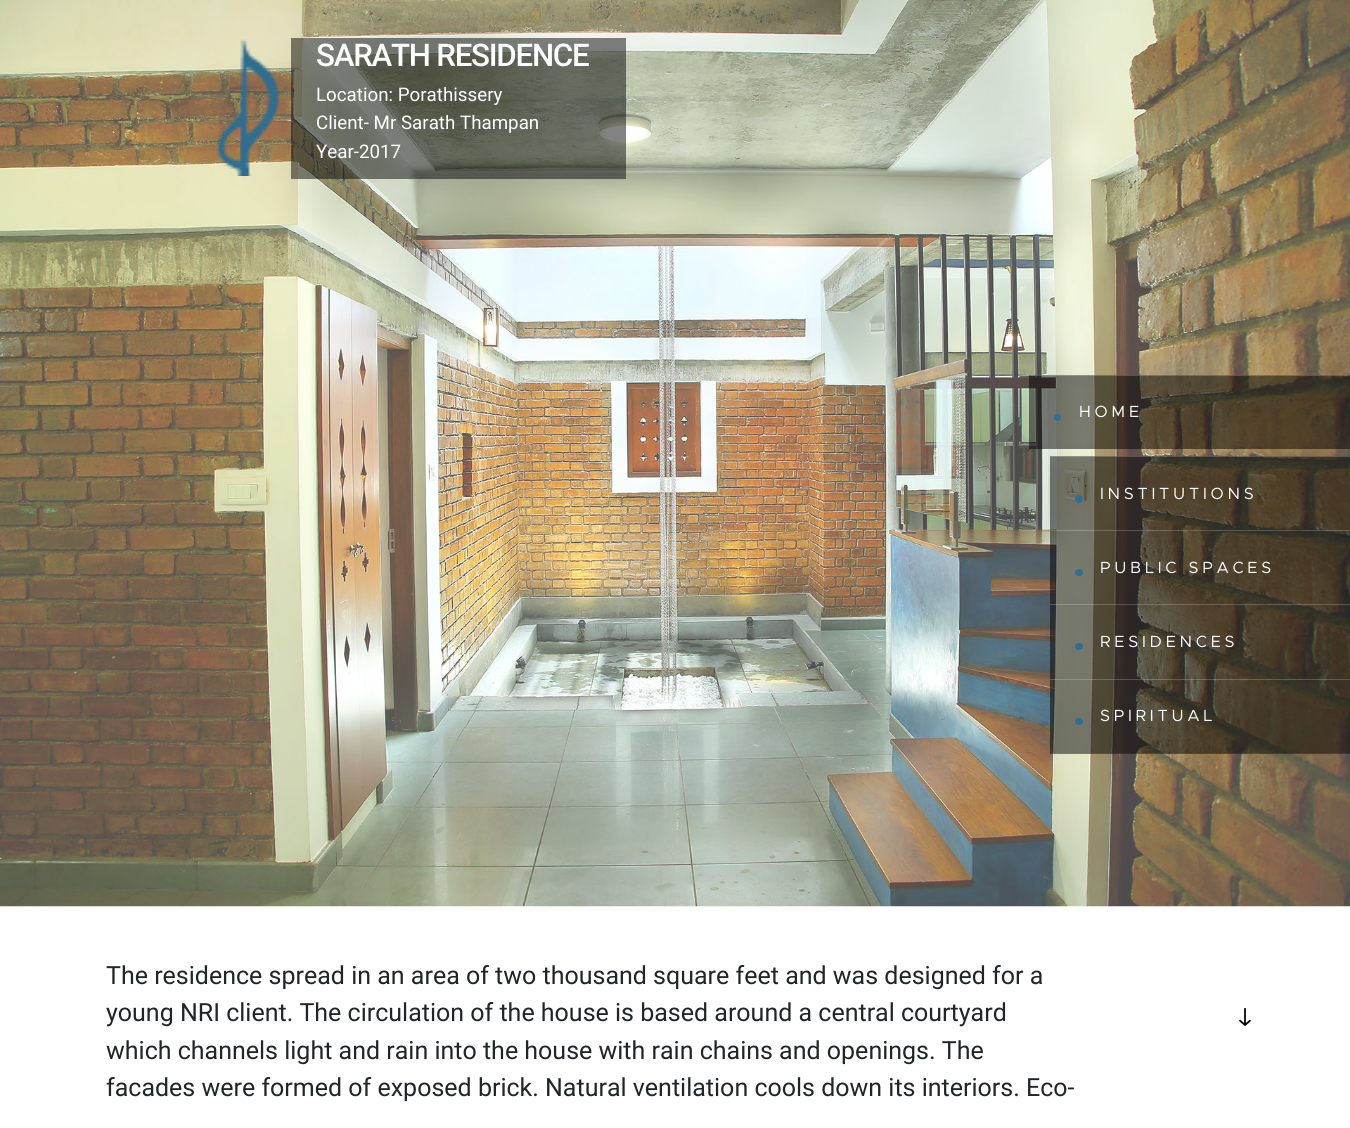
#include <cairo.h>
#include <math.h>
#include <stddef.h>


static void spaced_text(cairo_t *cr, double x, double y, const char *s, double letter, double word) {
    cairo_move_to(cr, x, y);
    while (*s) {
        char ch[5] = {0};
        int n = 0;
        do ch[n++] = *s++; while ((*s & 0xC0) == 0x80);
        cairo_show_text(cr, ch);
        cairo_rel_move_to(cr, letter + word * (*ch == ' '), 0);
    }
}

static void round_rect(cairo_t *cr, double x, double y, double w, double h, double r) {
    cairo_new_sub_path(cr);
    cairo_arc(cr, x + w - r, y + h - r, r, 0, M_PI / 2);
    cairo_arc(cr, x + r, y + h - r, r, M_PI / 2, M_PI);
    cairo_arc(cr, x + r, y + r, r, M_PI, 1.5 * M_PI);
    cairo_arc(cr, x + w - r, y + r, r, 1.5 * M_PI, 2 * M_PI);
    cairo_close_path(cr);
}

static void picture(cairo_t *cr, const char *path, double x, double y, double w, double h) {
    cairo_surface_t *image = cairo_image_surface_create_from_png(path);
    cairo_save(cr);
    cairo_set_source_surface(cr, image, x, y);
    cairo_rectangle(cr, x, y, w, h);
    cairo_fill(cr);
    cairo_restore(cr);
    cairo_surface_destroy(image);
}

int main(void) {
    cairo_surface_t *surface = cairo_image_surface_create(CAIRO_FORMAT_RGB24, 1350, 1128);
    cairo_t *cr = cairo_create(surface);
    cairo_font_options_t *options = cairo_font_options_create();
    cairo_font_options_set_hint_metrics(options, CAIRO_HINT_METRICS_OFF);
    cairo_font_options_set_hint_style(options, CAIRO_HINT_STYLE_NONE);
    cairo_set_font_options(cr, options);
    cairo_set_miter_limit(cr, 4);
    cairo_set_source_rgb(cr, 1, 1, 1);
    cairo_paint(cr);
    picture(cr, "img1.png", 0, 0, 1350, 907);
    picture(cr, "img2.png", 216, 39, 63, 137);
    cairo_set_source_rgba(cr, 0.039, 0.039, 0.039, 0.5);
    cairo_rectangle(cr, 291, 38, 335, 141);
    cairo_fill(cr);
    cairo_select_font_face(cr, "Roboto Medium", CAIRO_FONT_SLANT_NORMAL, CAIRO_FONT_WEIGHT_NORMAL);
    cairo_set_font_size(cr, 31.25);
    cairo_set_source_rgb(cr, 1, 1, 1);
    spaced_text(cr, 316, 66, "SARATH RESIDENCE", -1.25, 0);
    cairo_select_font_face(cr, "Roboto", CAIRO_FONT_SLANT_NORMAL, CAIRO_FONT_WEIGHT_NORMAL);
    cairo_set_font_size(cr, 18.75);
    cairo_move_to(cr, 316, 101);
    cairo_show_text(cr, "Location: Porathissery");
    cairo_move_to(cr, 316, 129);
    cairo_show_text(cr, "Client- Mr Sarath Thampan");
    cairo_move_to(cr, 316, 158);
    cairo_show_text(cr, "Year-2017");
    cairo_set_source_rgba(cr, 0, 0, 0, 0.5);
    cairo_rectangle(cr, 1029, 375, 321, 74);
    cairo_fill(cr);
    cairo_set_source_rgba(cr, 1, 1, 1, 0.2);
    cairo_rectangle(cr, 1029, 375, 321, 1);
    cairo_fill(cr);
    cairo_set_source_rgb(cr, 0.192, 0.427, 0.561);
    cairo_arc(cr, 1057.5, 417.5, 3.5, 0, 2 * M_PI);
    cairo_fill(cr);
    cairo_select_font_face(cr, "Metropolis", CAIRO_FONT_SLANT_NORMAL, CAIRO_FONT_WEIGHT_NORMAL);
    cairo_set_font_size(cr, 16.25);
    cairo_set_source_rgb(cr, 1, 1, 1);
    spaced_text(cr, 1079, 417, "HOME", 3.75, 0);
    cairo_set_source_rgba(cr, 0, 0, 0, 0.5);
    cairo_rectangle(cr, 1050, 456, 300, 74);
    cairo_fill(cr);
    cairo_set_source_rgba(cr, 1, 1, 1, 0.2);
    cairo_rectangle(cr, 1050, 456, 300, 1);
    cairo_fill(cr);
    cairo_set_source_rgb(cr, 0.192, 0.427, 0.561);
    cairo_arc(cr, 1079, 499, 4, 0, 2 * M_PI);
    cairo_fill(cr);
    cairo_set_source_rgb(cr, 1, 1, 1);
    spaced_text(cr, 1100, 499, "INSTITUTIONS", 3.75, 0);
    cairo_set_source_rgba(cr, 0, 0, 0, 0.5);
    cairo_rectangle(cr, 1050, 530, 300, 74);
    cairo_fill(cr);
    cairo_set_source_rgba(cr, 1, 1, 1, 0.2);
    cairo_rectangle(cr, 1050, 530, 300, 1);
    cairo_fill(cr);
    cairo_set_source_rgb(cr, 0.192, 0.427, 0.561);
    round_rect(cr, 1075, 569, 8, 7, 3.5);
    cairo_fill(cr);
    cairo_set_source_rgb(cr, 1, 1, 1);
    spaced_text(cr, 1100, 573, "PUBLIC SPACES", 3.75, 0);
    cairo_set_source_rgba(cr, 0, 0, 0, 0.5);
    cairo_rectangle(cr, 1050, 604, 300, 75);
    cairo_fill(cr);
    cairo_set_source_rgba(cr, 1, 1, 1, 0.2);
    cairo_rectangle(cr, 1050, 604, 300, 1);
    cairo_fill(cr);
    cairo_set_source_rgb(cr, 0.192, 0.427, 0.561);
    round_rect(cr, 1075, 643, 8, 7, 3.5);
    cairo_fill(cr);
    cairo_set_source_rgb(cr, 1, 1, 1);
    spaced_text(cr, 1100, 647, "RESIDENCES", 3.75, 0);
    cairo_set_source_rgba(cr, 0, 0, 0, 0.5);
    cairo_rectangle(cr, 1050, 679, 300, 75);
    cairo_fill(cr);
    cairo_set_source_rgba(cr, 1, 1, 1, 0.2);
    cairo_rectangle(cr, 1050, 679, 300, 1);
    cairo_fill(cr);
    cairo_set_source_rgba(cr, 1, 1, 1, 0.05);
    cairo_rectangle(cr, 1050, 753, 300, 1);
    cairo_fill(cr);
    cairo_set_source_rgb(cr, 0.192, 0.427, 0.561);
    round_rect(cr, 1075, 718, 8, 7, 3.5);
    cairo_fill(cr);
    cairo_set_source_rgb(cr, 1, 1, 1);
    spaced_text(cr, 1100, 721, "SPIRITUAL", 3.75, 0);
    cairo_select_font_face(cr, "Roboto", CAIRO_FONT_SLANT_NORMAL, CAIRO_FONT_WEIGHT_NORMAL);
    cairo_set_font_size(cr, 25);
    cairo_set_source_rgb(cr, 0.129, 0.145, 0.161);
    cairo_move_to(cr, 106, 984);
    cairo_show_text(cr, "The residence spread in an area of two thousand square feet and was designed for a");
    cairo_move_to(cr, 106, 1021);
    cairo_show_text(cr, "young NRI client. The circulation of the house is based around a central courtyard");
    cairo_move_to(cr, 106, 1059);
    cairo_show_text(cr, "which channels light and rain into the house with rain chains and openings. The");
    cairo_move_to(cr, 106, 1096);
    cairo_show_text(cr, "facades were formed of exposed brick. Natural ventilation cools down its interiors. Eco-");
    picture(cr, "img3.png", 1239, 1008, 12, 18);
    cairo_surface_write_to_png(surface, "page.png");
    cairo_font_options_destroy(options);
    cairo_destroy(cr);
    cairo_surface_destroy(surface);
    return 0;
}
